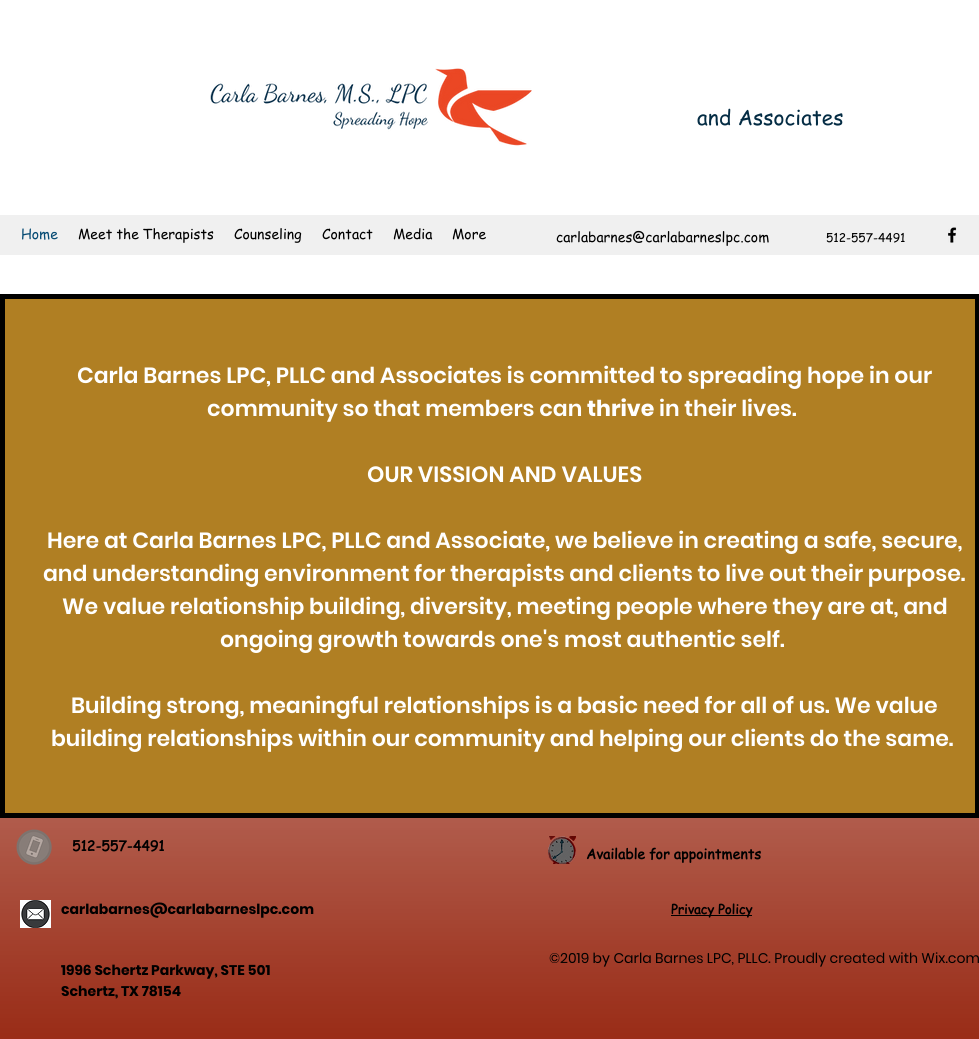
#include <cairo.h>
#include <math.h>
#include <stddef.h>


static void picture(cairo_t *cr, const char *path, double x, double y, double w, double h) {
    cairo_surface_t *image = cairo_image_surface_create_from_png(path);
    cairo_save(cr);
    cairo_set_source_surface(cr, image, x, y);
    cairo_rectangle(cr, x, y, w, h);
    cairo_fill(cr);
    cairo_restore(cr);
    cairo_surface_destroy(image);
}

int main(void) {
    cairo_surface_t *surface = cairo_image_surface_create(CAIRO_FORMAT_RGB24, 979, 1039);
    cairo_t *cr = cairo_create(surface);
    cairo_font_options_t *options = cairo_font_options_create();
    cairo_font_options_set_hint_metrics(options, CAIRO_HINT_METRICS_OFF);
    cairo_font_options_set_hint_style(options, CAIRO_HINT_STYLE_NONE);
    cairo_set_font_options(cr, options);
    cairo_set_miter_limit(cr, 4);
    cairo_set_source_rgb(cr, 0.69, 0.498, 0.137);
    cairo_paint(cr);
    cairo_set_source_rgb(cr, 1, 1, 1);
    cairo_rectangle(cr, 0, 0, 979, 294);
    cairo_fill(cr);
    picture(cr, "img1.png", 210, 68, 322, 78);
    cairo_select_font_face(cr, "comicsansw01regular", CAIRO_FONT_SLANT_NORMAL, CAIRO_FONT_WEIGHT_NORMAL);
    cairo_set_font_size(cr, 21);
    cairo_set_source_rgb(cr, 0.016, 0.173, 0.267);
    cairo_move_to(cr, 697, 125);
    cairo_show_text(cr, "and Associates");
    cairo_set_source_rgb(cr, 0.941, 0.941, 0.941);
    cairo_rectangle(cr, 0, 215, 979, 40);
    cairo_fill(cr);
    cairo_set_font_size(cr, 14);
    cairo_set_source_rgb(cr, 0.027, 0.294, 0.455);
    cairo_move_to(cr, 21, 239);
    cairo_show_text(cr, "Home");
    cairo_set_source_rgb(cr, 0, 0, 0);
    cairo_move_to(cr, 78, 239);
    cairo_show_text(cr, "Meet the Therapists");
    cairo_move_to(cr, 234, 239);
    cairo_show_text(cr, "Counseling");
    cairo_move_to(cr, 322, 239);
    cairo_show_text(cr, "Contact");
    cairo_move_to(cr, 393, 239);
    cairo_show_text(cr, "Media");
    cairo_move_to(cr, 452, 239);
    cairo_show_text(cr, "More");
    cairo_move_to(cr, 556, 242);
    cairo_show_text(cr, "carlabarnes@carlabarneslpc.com");
    cairo_set_font_size(cr, 12);
    cairo_move_to(cr, 826, 242);
    cairo_show_text(cr, "512-557-4491");
    picture(cr, "img2.png", 948, 227, 9, 16);
    picture(cr, "img3.png", 0, 294, 979, 5);
    picture(cr, "img3.png", 0, 813, 979, 5);
    cairo_rectangle(cr, 0, 299, 5, 514);
    cairo_fill(cr);
    cairo_rectangle(cr, 975, 299, 4, 514);
    cairo_fill(cr);
    cairo_select_font_face(cr, "Poppins SemiBold", CAIRO_FONT_SLANT_NORMAL, CAIRO_FONT_WEIGHT_NORMAL);
    cairo_set_font_size(cr, 22);
    cairo_set_source_rgb(cr, 1, 1, 1);
    cairo_move_to(cr, 77, 383);
    cairo_show_text(cr, "Carla Barnes LPC, PLLC and Associates is committed to spreading hope in our");
    cairo_move_to(cr, 207, 416);
    cairo_show_text(cr, "community so that members can");
    cairo_select_font_face(cr, "Poppins", CAIRO_FONT_SLANT_NORMAL, CAIRO_FONT_WEIGHT_BOLD);
    cairo_move_to(cr, 587, 416);
    cairo_show_text(cr, "thrive");
    cairo_select_font_face(cr, "Poppins SemiBold", CAIRO_FONT_SLANT_NORMAL, CAIRO_FONT_WEIGHT_NORMAL);
    cairo_move_to(cr, 659, 416);
    cairo_show_text(cr, "in their lives.");
    cairo_move_to(cr, 367, 482);
    cairo_show_text(cr, "OUR VISSION AND VALUES");
    cairo_move_to(cr, 47, 548);
    cairo_show_text(cr, "Here at Carla Barnes LPC, PLLC and Associate, we believe in creating a safe, secure,");
    cairo_move_to(cr, 43, 581);
    cairo_show_text(cr, "and understanding environment for therapists and clients to live out their purpose.");
    cairo_move_to(cr, 62, 614);
    cairo_show_text(cr, "We value relationship building, diversity, meeting people where they are at, and");
    cairo_move_to(cr, 220, 647);
    cairo_show_text(cr, "ongoing growth towards one's most authentic self.");
    cairo_move_to(cr, 71, 713);
    cairo_show_text(cr, "Building strong, meaningful relationships is a basic need for all of us. We value");
    cairo_move_to(cr, 51, 746);
    cairo_show_text(cr, "building relationships within our community and helping our clients do the same.");
    cairo_set_source_rgb(cr, 0.584, 0.137, 0.051);
    cairo_rectangle(cr, 0, 818, 979, 221);
    cairo_fill(cr);
    picture(cr, "img4.png", 0, 818, 979, 221);
    picture(cr, "img5.png", 16, 829, 36, 36);
    cairo_select_font_face(cr, "comicsansw01regular", CAIRO_FONT_SLANT_NORMAL, CAIRO_FONT_WEIGHT_BOLD);
    cairo_set_font_size(cr, 14);
    cairo_set_source_rgb(cr, 0, 0, 0);
    cairo_move_to(cr, 72, 851);
    cairo_show_text(cr, "512-557-4491");
    picture(cr, "img6.png", 548, 836, 28, 28);
    cairo_move_to(cr, 586, 859);
    cairo_show_text(cr, "Available for appointments");
    picture(cr, "img7.png", 20, 900, 31, 28);
    cairo_select_font_face(cr, "Poppins", CAIRO_FONT_SLANT_NORMAL, CAIRO_FONT_WEIGHT_BOLD);
    cairo_move_to(cr, 61, 914);
    cairo_show_text(cr, "carlabarnes@carlabarneslpc.com");
    cairo_rectangle(cr, 671, 915, 81, 1);
    cairo_fill(cr);
    cairo_select_font_face(cr, "comicsansw01regular", CAIRO_FONT_SLANT_NORMAL, CAIRO_FONT_WEIGHT_BOLD);
    cairo_set_font_size(cr, 13);
    cairo_move_to(cr, 671, 914);
    cairo_show_text(cr, "Privacy Policy");
    cairo_select_font_face(cr, "Poppins", CAIRO_FONT_SLANT_NORMAL, CAIRO_FONT_WEIGHT_NORMAL);
    cairo_set_font_size(cr, 14);
    cairo_move_to(cr, 549, 963);
    cairo_show_text(cr, "©2019 by Carla Barnes LPC, PLLC. Proudly created with Wix.com");
    cairo_select_font_face(cr, "Poppins", CAIRO_FONT_SLANT_NORMAL, CAIRO_FONT_WEIGHT_BOLD);
    cairo_move_to(cr, 61, 975);
    cairo_show_text(cr, "1996 Schertz Parkway, STE 501");
    cairo_move_to(cr, 61, 996);
    cairo_show_text(cr, "Schertz, TX 78154");
    cairo_surface_write_to_png(surface, "page.png");
    cairo_font_options_destroy(options);
    cairo_destroy(cr);
    cairo_surface_destroy(surface);
    return 0;
}
